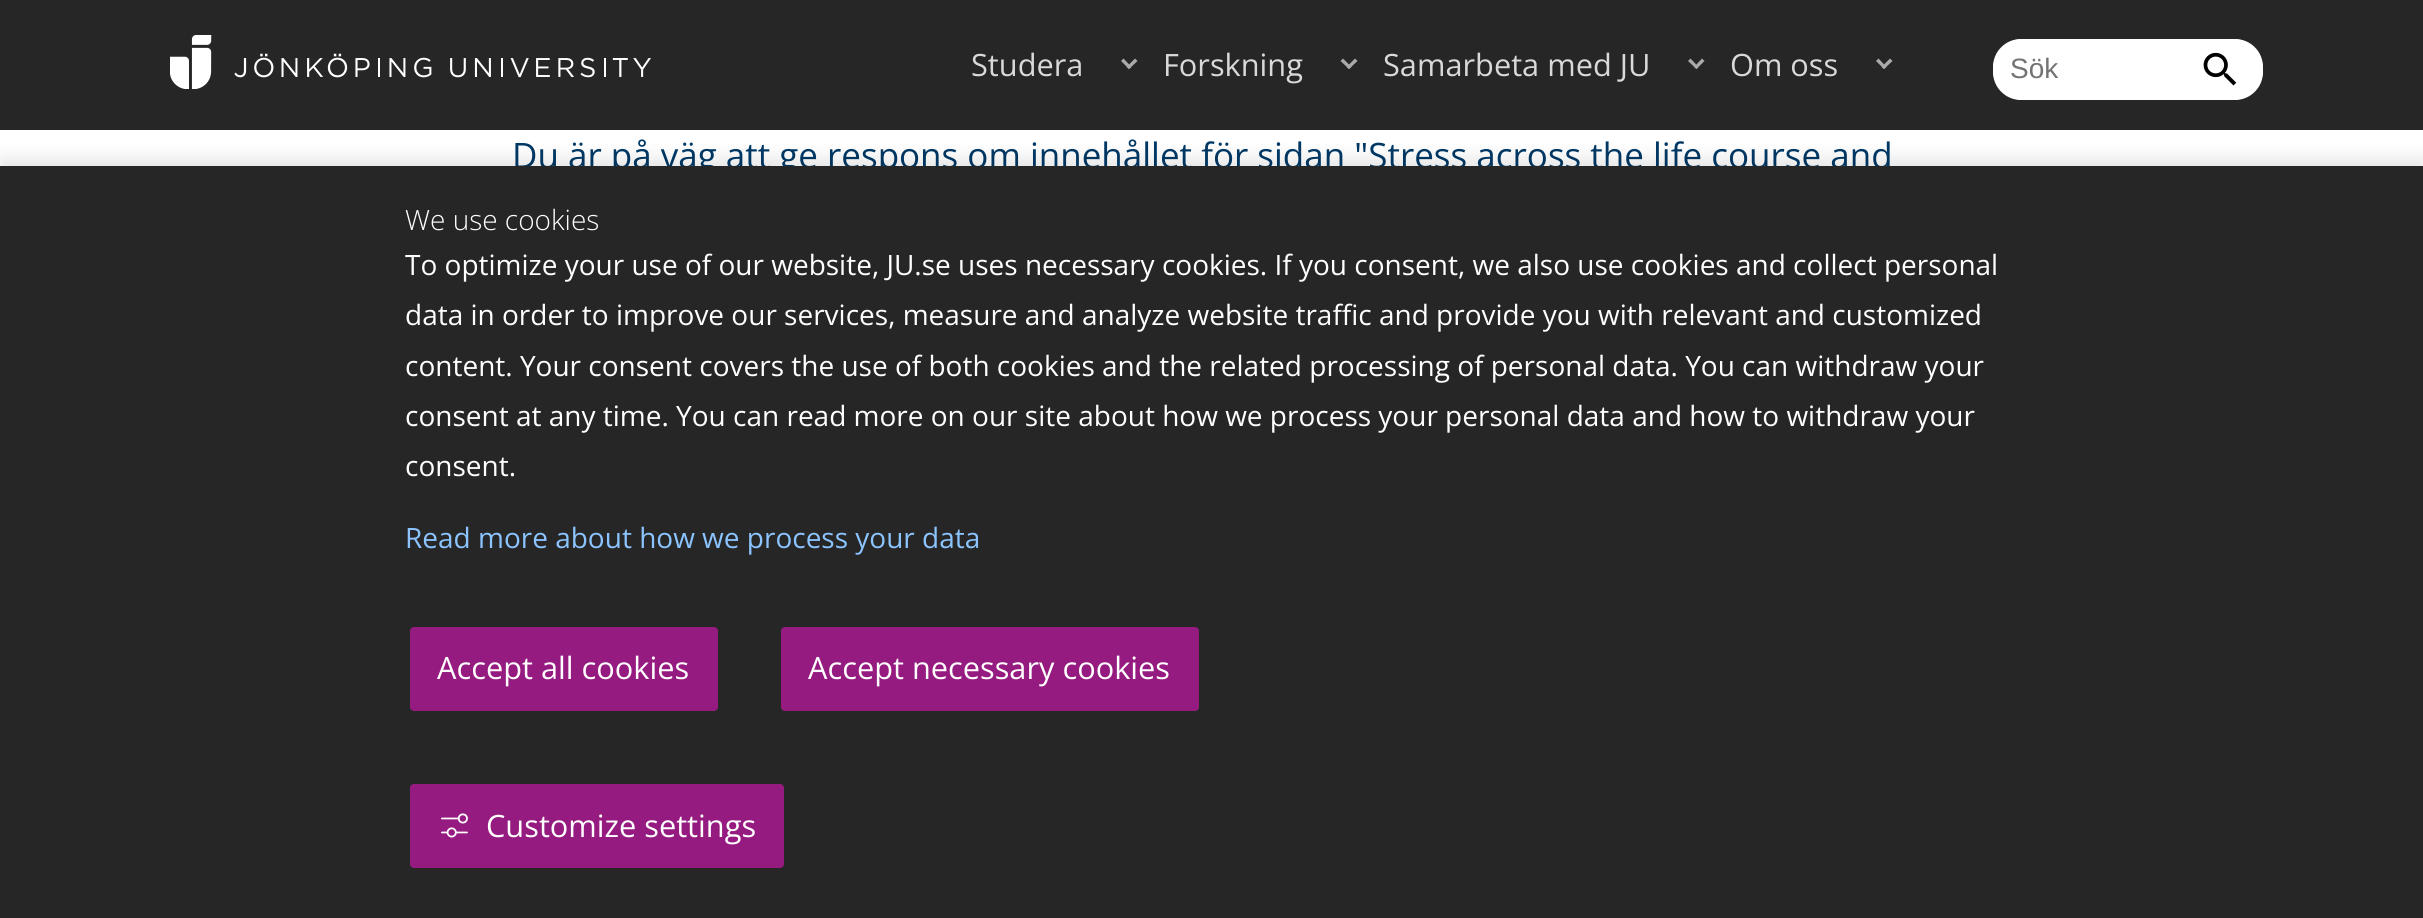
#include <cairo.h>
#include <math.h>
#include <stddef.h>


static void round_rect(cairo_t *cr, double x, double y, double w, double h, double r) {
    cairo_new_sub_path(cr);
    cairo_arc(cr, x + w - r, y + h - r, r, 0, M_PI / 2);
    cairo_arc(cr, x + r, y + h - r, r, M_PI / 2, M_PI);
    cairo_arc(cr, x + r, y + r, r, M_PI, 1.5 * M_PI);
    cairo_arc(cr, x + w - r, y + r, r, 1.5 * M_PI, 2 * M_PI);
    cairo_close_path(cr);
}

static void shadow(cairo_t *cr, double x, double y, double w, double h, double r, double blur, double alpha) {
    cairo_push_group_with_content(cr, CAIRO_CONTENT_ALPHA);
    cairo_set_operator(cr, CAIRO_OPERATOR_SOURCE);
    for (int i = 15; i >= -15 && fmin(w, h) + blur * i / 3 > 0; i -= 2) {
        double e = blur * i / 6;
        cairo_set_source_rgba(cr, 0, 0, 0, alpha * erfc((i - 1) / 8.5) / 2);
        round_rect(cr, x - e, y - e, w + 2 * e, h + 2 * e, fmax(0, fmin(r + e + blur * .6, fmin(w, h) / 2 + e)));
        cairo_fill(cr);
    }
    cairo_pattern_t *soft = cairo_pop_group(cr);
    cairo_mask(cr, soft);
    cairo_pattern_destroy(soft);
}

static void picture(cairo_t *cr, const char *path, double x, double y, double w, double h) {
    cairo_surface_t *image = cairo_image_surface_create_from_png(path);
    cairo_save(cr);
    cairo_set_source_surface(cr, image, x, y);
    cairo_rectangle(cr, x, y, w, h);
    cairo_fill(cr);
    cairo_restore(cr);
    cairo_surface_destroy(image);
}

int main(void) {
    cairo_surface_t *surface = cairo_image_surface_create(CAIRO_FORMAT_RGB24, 2423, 918);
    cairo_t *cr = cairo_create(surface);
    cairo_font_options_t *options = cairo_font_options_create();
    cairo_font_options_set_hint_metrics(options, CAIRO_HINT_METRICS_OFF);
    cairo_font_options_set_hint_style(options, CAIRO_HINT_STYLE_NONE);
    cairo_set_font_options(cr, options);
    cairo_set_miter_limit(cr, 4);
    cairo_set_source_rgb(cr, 1, 1, 1);
    cairo_paint(cr);
    cairo_set_source_rgb(cr, 0.149, 0.149, 0.149);
    cairo_rectangle(cr, 0, 0, 2423, 130);
    cairo_fill(cr);
    picture(cr, "img1.png", 170, 35, 481, 54);
    cairo_select_font_face(cr, "Open Sans", CAIRO_FONT_SLANT_NORMAL, CAIRO_FONT_WEIGHT_NORMAL);
    cairo_set_font_size(cr, 30.75);
    cairo_set_source_rgb(cr, 0.851, 0.851, 0.851);
    cairo_move_to(cr, 971, 76);
    cairo_show_text(cr, "Studera");
    cairo_set_source_rgb(cr, 0.667, 0.667, 0.667);
    cairo_new_path(cr);
    cairo_move_to(cr, 1126.5, 67);
    cairo_line_to(cr, 1135, 58.5);
    cairo_line_to(cr, 1137.5, 61);
    cairo_line_to(cr, 1129, 69);
    cairo_close_path(cr);
    cairo_fill(cr);
    cairo_new_path(cr);
    cairo_move_to(cr, 1121, 61);
    cairo_line_to(cr, 1123.5, 58.5);
    cairo_line_to(cr, 1131.5, 67);
    cairo_line_to(cr, 1129, 69);
    cairo_close_path(cr);
    cairo_fill(cr);
    cairo_set_source_rgb(cr, 0.851, 0.851, 0.851);
    cairo_move_to(cr, 1163, 76);
    cairo_show_text(cr, "Forskning");
    cairo_set_source_rgb(cr, 0.667, 0.667, 0.667);
    cairo_new_path(cr);
    cairo_move_to(cr, 1346.5, 67);
    cairo_line_to(cr, 1355, 58.5);
    cairo_line_to(cr, 1357.5, 61);
    cairo_line_to(cr, 1349, 69);
    cairo_close_path(cr);
    cairo_fill(cr);
    cairo_new_path(cr);
    cairo_move_to(cr, 1340.5, 61);
    cairo_line_to(cr, 1343, 58.5);
    cairo_line_to(cr, 1351.5, 67);
    cairo_line_to(cr, 1349, 69);
    cairo_close_path(cr);
    cairo_fill(cr);
    cairo_set_source_rgb(cr, 0.851, 0.851, 0.851);
    cairo_move_to(cr, 1383, 76);
    cairo_show_text(cr, "Samarbeta med JU");
    cairo_set_source_rgb(cr, 0.667, 0.667, 0.667);
    cairo_new_path(cr);
    cairo_move_to(cr, 1694, 67);
    cairo_line_to(cr, 1702, 58.5);
    cairo_line_to(cr, 1704.5, 61);
    cairo_line_to(cr, 1696.5, 69);
    cairo_close_path(cr);
    cairo_fill(cr);
    cairo_new_path(cr);
    cairo_move_to(cr, 1688, 61);
    cairo_line_to(cr, 1690.5, 58.5);
    cairo_line_to(cr, 1698.5, 67);
    cairo_line_to(cr, 1696.5, 69);
    cairo_close_path(cr);
    cairo_fill(cr);
    cairo_set_source_rgb(cr, 0.851, 0.851, 0.851);
    cairo_move_to(cr, 1730, 76);
    cairo_show_text(cr, "Om oss");
    cairo_set_source_rgb(cr, 0.667, 0.667, 0.667);
    cairo_new_path(cr);
    cairo_move_to(cr, 1881.5, 67);
    cairo_line_to(cr, 1890, 58.5);
    cairo_line_to(cr, 1892.5, 61);
    cairo_line_to(cr, 1884, 69);
    cairo_close_path(cr);
    cairo_fill(cr);
    cairo_new_path(cr);
    cairo_move_to(cr, 1876, 61);
    cairo_line_to(cr, 1878.5, 58.5);
    cairo_line_to(cr, 1886.5, 67);
    cairo_line_to(cr, 1884, 69);
    cairo_close_path(cr);
    cairo_fill(cr);
    cairo_set_source_rgb(cr, 1, 1, 1);
    round_rect(cr, 1993, 39, 270, 61, 28);
    cairo_fill(cr);
    round_rect(cr, 1993, 39, 270, 61, 30.5);
    cairo_fill(cr);
    cairo_select_font_face(cr, "Liberation Sans", CAIRO_FONT_SLANT_NORMAL, CAIRO_FONT_WEIGHT_NORMAL);
    cairo_set_font_size(cr, 28);
    cairo_set_source_rgb(cr, 0.451, 0.451, 0.451);
    cairo_move_to(cr, 2010, 78);
    cairo_show_text(cr, "Sök");
    picture(cr, "img2.png", 2203, 52, 34, 34);
    cairo_select_font_face(cr, "Open Sans", CAIRO_FONT_SLANT_NORMAL, CAIRO_FONT_WEIGHT_NORMAL);
    cairo_set_font_size(cr, 35);
    cairo_set_source_rgb(cr, 0, 0.22, 0.396);
    cairo_move_to(cr, 512, 168);
    cairo_show_text(cr, "Du är på väg att ge respons om innehållet för sidan \"Stress across the life course and");
    cairo_set_source_rgb(cr, 0, 0, 0);
    shadow(cr, 0, 158, 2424, 752, 0, 9, 0.1);
    cairo_set_source_rgb(cr, 0.149, 0.149, 0.149);
    cairo_rectangle(cr, 0, 166, 2423, 752);
    cairo_fill(cr);
    cairo_select_font_face(cr, "Open Sans Light", CAIRO_FONT_SLANT_NORMAL, CAIRO_FONT_WEIGHT_NORMAL);
    cairo_set_font_size(cr, 28);
    cairo_set_source_rgb(cr, 1, 1, 1);
    cairo_move_to(cr, 405, 230);
    cairo_show_text(cr, "We use cookies");
    cairo_select_font_face(cr, "Open Sans", CAIRO_FONT_SLANT_NORMAL, CAIRO_FONT_WEIGHT_NORMAL);
    cairo_move_to(cr, 405, 275);
    cairo_show_text(cr, "To optimize your use of our website, JU.se uses necessary cookies. If you consent, we also use cookies and collect personal");
    cairo_move_to(cr, 405, 325);
    cairo_show_text(cr, "data in order to improve our services, measure and analyze website traffic and provide you with relevant and customized");
    cairo_move_to(cr, 405, 376);
    cairo_show_text(cr, "content. Your consent covers the use of both cookies and the related processing of personal data. You can withdraw your");
    cairo_move_to(cr, 405, 426);
    cairo_show_text(cr, "consent at any time. You can read more on our site about how we process your personal data and how to withdraw your");
    cairo_move_to(cr, 405, 476);
    cairo_show_text(cr, "consent.");
    cairo_set_source_rgb(cr, 0.545, 0.769, 1);
    cairo_move_to(cr, 405, 548);
    cairo_show_text(cr, "Read more about how we process your data");
    cairo_set_source_rgb(cr, 0.588, 0.106, 0.506);
    round_rect(cr, 410, 627, 308, 84, 4);
    cairo_fill(cr);
    cairo_set_font_size(cr, 30.75);
    cairo_set_source_rgb(cr, 1, 1, 1);
    cairo_move_to(cr, 437, 679);
    cairo_show_text(cr, "Accept all cookies");
    cairo_set_source_rgb(cr, 0.588, 0.106, 0.506);
    round_rect(cr, 781, 627, 418, 84, 4);
    cairo_fill(cr);
    cairo_set_source_rgb(cr, 1, 1, 1);
    cairo_move_to(cr, 808, 679);
    cairo_show_text(cr, "Accept necessary cookies");
    cairo_set_source_rgb(cr, 0.588, 0.106, 0.506);
    round_rect(cr, 410, 784, 374, 84, 4);
    cairo_fill(cr);
    picture(cr, "img3.png", 441, 813, 27, 25);
    cairo_set_source_rgb(cr, 1, 1, 1);
    cairo_move_to(cr, 486, 837);
    cairo_show_text(cr, "Customize settings");
    cairo_surface_write_to_png(surface, "page.png");
    cairo_font_options_destroy(options);
    cairo_destroy(cr);
    cairo_surface_destroy(surface);
    return 0;
}
